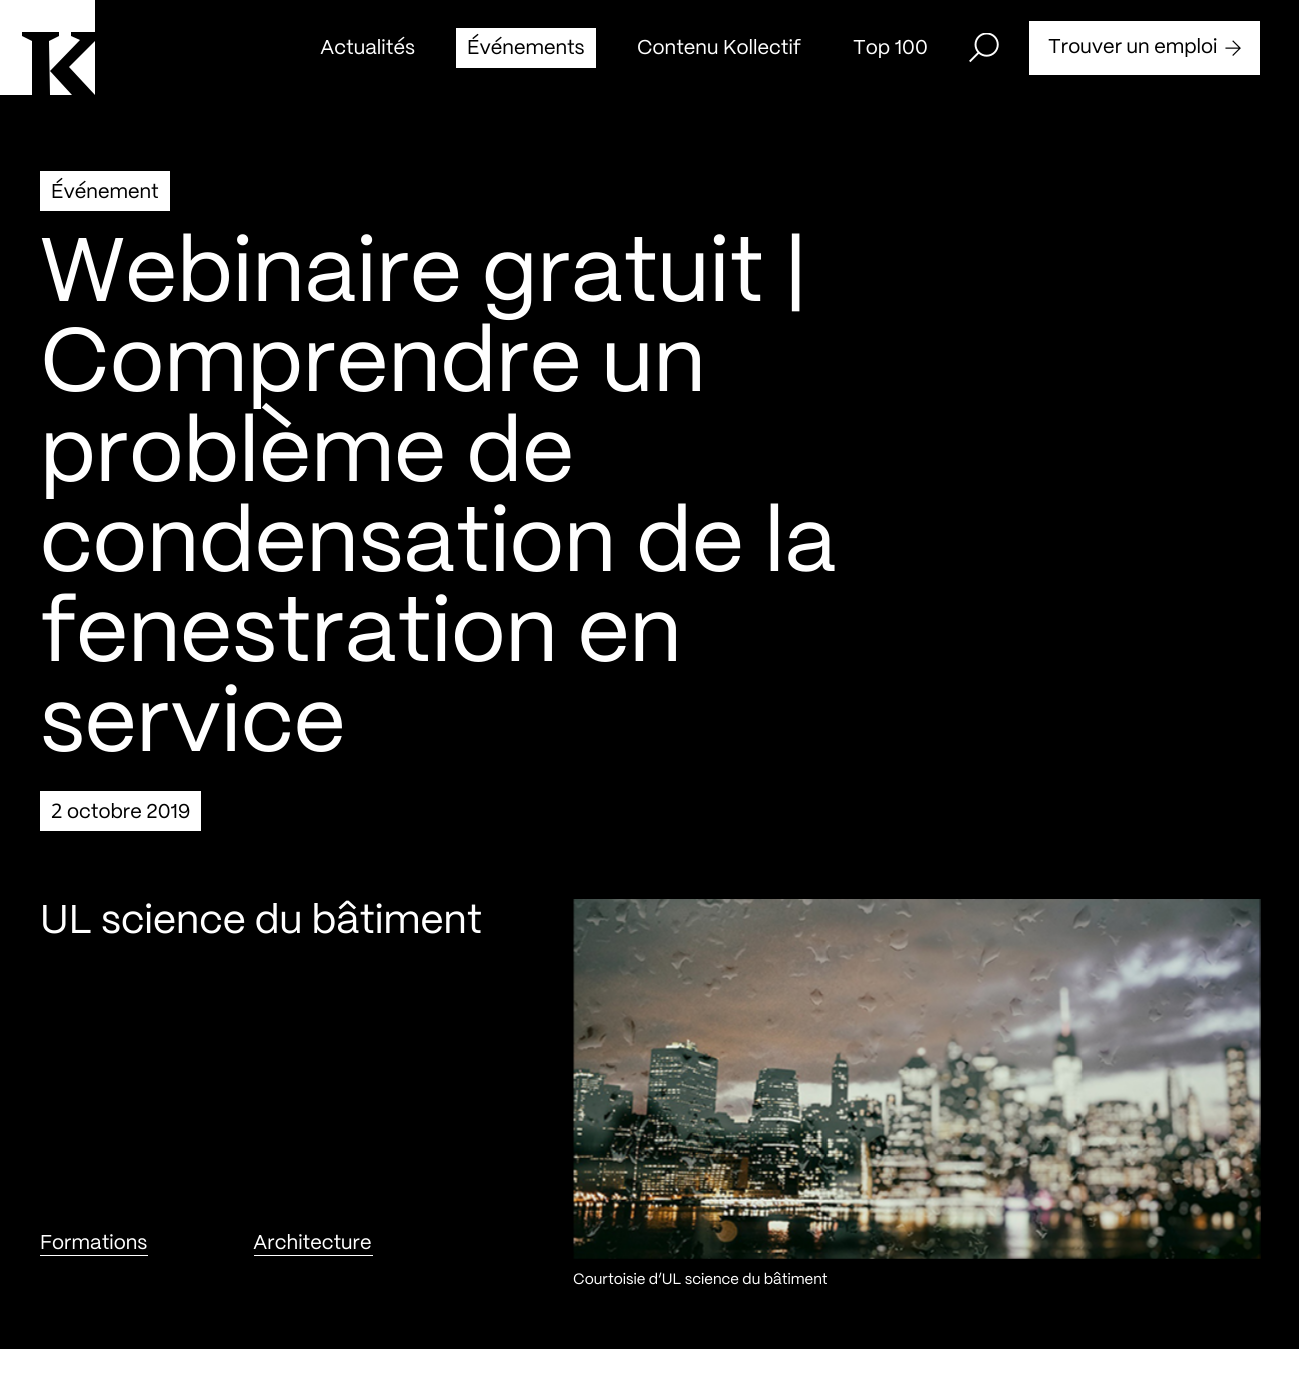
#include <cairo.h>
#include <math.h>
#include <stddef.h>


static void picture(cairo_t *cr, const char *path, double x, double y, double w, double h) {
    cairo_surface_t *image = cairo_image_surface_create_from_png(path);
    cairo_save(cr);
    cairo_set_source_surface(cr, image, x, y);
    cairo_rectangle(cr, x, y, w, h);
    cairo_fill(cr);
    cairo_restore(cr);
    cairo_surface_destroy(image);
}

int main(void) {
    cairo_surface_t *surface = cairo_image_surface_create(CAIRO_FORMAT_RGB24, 1299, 1377);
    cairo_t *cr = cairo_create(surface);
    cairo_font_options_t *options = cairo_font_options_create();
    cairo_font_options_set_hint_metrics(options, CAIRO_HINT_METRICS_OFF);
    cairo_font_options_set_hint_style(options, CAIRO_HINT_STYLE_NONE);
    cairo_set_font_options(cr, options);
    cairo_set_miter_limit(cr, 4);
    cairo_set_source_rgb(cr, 1, 1, 1);
    cairo_paint(cr);
    cairo_set_source_rgb(cr, 0, 0, 0);
    cairo_rectangle(cr, 22, 0, 1277, 95);
    cairo_fill(cr);
    cairo_set_source_rgb(cr, 1, 1, 1);
    cairo_set_fill_rule(cr, CAIRO_FILL_RULE_EVEN_ODD);
    cairo_new_path(cr);
    cairo_move_to(cr, 95, 95);
    cairo_line_to(cr, 95, 41);
    cairo_line_to(cr, 69, 67);
    cairo_close_path(cr);
    cairo_move_to(cr, 0, 0);
    cairo_line_to(cr, 0, 95);
    cairo_line_to(cr, 32, 95);
    cairo_line_to(cr, 32, 41);
    cairo_line_to(cr, 22, 36);
    cairo_line_to(cr, 22, 32);
    cairo_line_to(cr, 59, 32);
    cairo_line_to(cr, 59, 36);
    cairo_line_to(cr, 49, 41);
    cairo_line_to(cr, 50, 95);
    cairo_line_to(cr, 72, 95);
    cairo_line_to(cr, 50, 71);
    cairo_line_to(cr, 80, 40);
    cairo_line_to(cr, 71, 36);
    cairo_line_to(cr, 71, 32);
    cairo_line_to(cr, 95, 32);
    cairo_line_to(cr, 95, 0);
    cairo_close_path(cr);
    cairo_fill(cr);
    cairo_select_font_face(cr, "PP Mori", CAIRO_FONT_SLANT_NORMAL, CAIRO_FONT_WEIGHT_NORMAL);
    cairo_set_font_size(cr, 20);
    cairo_move_to(cr, 320, 54);
    cairo_show_text(cr, "Actualités");
    cairo_rectangle(cr, 456, 28, 140, 40);
    cairo_fill(cr);
    cairo_set_source_rgb(cr, 0, 0, 0);
    cairo_move_to(cr, 467, 54);
    cairo_show_text(cr, "Événements");
    cairo_set_source_rgb(cr, 1, 1, 1);
    cairo_move_to(cr, 637, 54);
    cairo_show_text(cr, "Contenu Kollectif");
    cairo_move_to(cr, 853, 54);
    cairo_show_text(cr, "Top 100");
    picture(cr, "img1.png", 969, 33, 30, 30);
    cairo_rectangle(cr, 1029, 21, 231, 54);
    cairo_fill(cr);
    cairo_set_source_rgb(cr, 0, 0, 0);
    cairo_move_to(cr, 1048, 53);
    cairo_show_text(cr, "Trouver un emploi");
    picture(cr, "img2.png", 1225, 40, 16, 16);
    cairo_rectangle(cr, 0, 95, 1299, 1254);
    cairo_fill(cr);
    cairo_set_source_rgb(cr, 1, 1, 1);
    cairo_rectangle(cr, 40, 171, 130, 40);
    cairo_fill(cr);
    cairo_set_source_rgb(cr, 0, 0, 0);
    cairo_move_to(cr, 51, 198);
    cairo_show_text(cr, "Événement");
    cairo_set_font_size(cr, 90);
    cairo_set_source_rgb(cr, 1, 1, 1);
    cairo_move_to(cr, 40, 301);
    cairo_show_text(cr, "Webinaire gratuit |");
    cairo_move_to(cr, 40, 391);
    cairo_show_text(cr, "Comprendre un");
    cairo_move_to(cr, 40, 481);
    cairo_show_text(cr, "problème de");
    cairo_move_to(cr, 40, 571);
    cairo_show_text(cr, "condensation de la");
    cairo_move_to(cr, 40, 661);
    cairo_show_text(cr, "fenestration en");
    cairo_move_to(cr, 40, 751);
    cairo_show_text(cr, "service");
    cairo_rectangle(cr, 40, 791, 161, 40);
    cairo_fill(cr);
    cairo_select_font_face(cr, "Noto Sans", CAIRO_FONT_SLANT_NORMAL, CAIRO_FONT_WEIGHT_NORMAL);
    cairo_set_font_size(cr, 20);
    cairo_set_source_rgb(cr, 0, 0, 0);
    cairo_move_to(cr, 51, 818);
    cairo_show_text(cr, "2");
    cairo_select_font_face(cr, "PP Mori", CAIRO_FONT_SLANT_NORMAL, CAIRO_FONT_WEIGHT_NORMAL);
    cairo_move_to(cr, 67, 818);
    cairo_show_text(cr, "octobre 2019");
    cairo_set_font_size(cr, 40);
    cairo_set_source_rgb(cr, 1, 1, 1);
    cairo_move_to(cr, 40, 933);
    cairo_show_text(cr, "UL science du bâtiment");
    picture(cr, "img3.png", 573, 899, 688, 360);
    cairo_set_font_size(cr, 20);
    cairo_move_to(cr, 40, 1249);
    cairo_show_text(cr, "Formations");
    cairo_rectangle(cr, 40, 1255, 108, 1);
    cairo_fill(cr);
    cairo_move_to(cr, 253, 1249);
    cairo_show_text(cr, "Architecture");
    cairo_rectangle(cr, 254, 1255, 119, 1);
    cairo_fill(cr);
    cairo_set_font_size(cr, 15);
    cairo_move_to(cr, 573, 1284);
    cairo_show_text(cr, "Courtoisie d’UL science du bâtiment");
    cairo_surface_write_to_png(surface, "page.png");
    cairo_font_options_destroy(options);
    cairo_destroy(cr);
    cairo_surface_destroy(surface);
    return 0;
}
